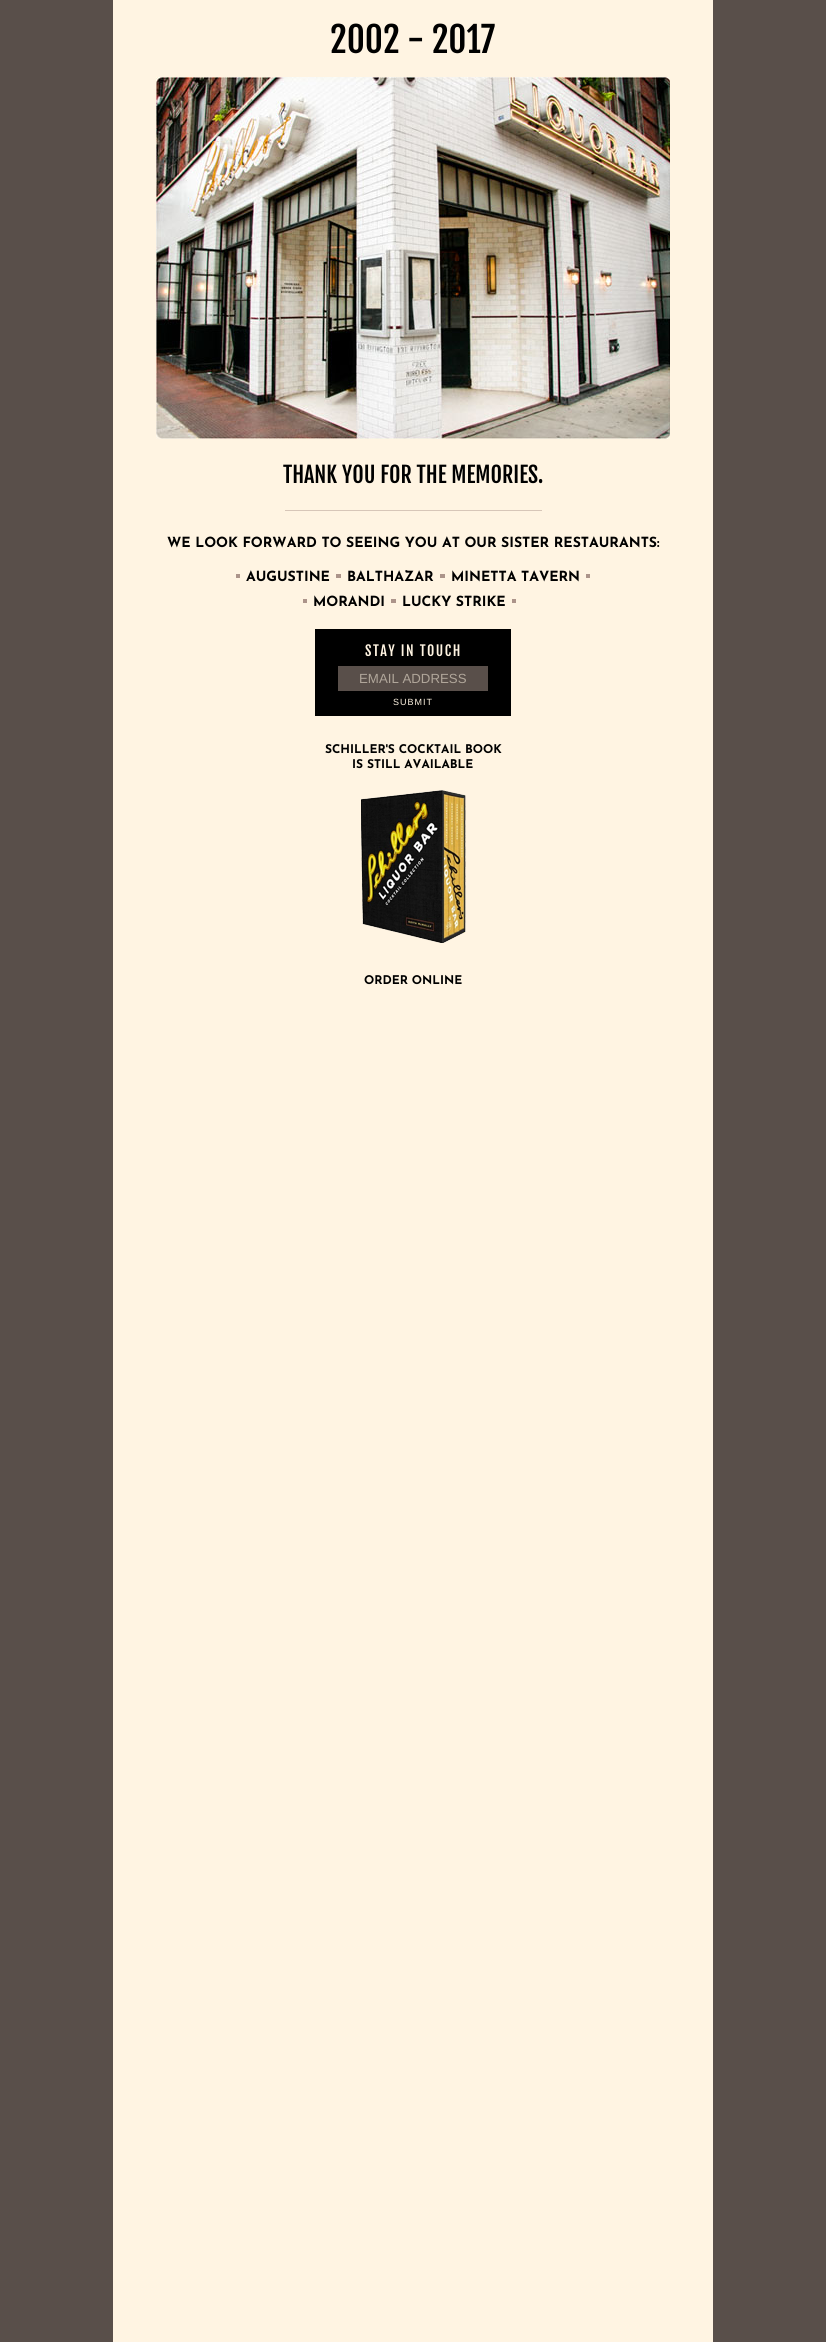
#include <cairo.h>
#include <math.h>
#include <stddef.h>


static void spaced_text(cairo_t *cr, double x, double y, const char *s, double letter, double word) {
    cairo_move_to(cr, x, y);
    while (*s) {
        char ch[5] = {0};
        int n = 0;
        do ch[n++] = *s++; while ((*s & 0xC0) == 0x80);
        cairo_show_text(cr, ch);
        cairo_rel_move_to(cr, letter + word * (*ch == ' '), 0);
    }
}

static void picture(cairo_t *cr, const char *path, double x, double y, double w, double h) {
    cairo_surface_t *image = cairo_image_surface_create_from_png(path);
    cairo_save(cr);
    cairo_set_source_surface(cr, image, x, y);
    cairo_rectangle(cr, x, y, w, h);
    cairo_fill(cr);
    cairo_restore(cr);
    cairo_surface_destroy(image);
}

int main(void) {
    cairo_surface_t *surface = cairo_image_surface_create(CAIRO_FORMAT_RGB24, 826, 2342);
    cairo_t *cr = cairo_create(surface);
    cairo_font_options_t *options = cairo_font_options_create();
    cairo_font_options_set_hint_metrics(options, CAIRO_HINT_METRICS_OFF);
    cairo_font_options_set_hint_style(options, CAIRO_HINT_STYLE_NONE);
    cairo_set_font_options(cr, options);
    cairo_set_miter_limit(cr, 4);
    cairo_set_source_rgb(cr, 0.349, 0.31, 0.29);
    cairo_paint(cr);
    cairo_set_source_rgb(cr, 1, 0.957, 0.886);
    cairo_rectangle(cr, 113, 0, 600, 2342);
    cairo_fill(cr);
    cairo_select_font_face(cr, "Fjalla One", CAIRO_FONT_SLANT_NORMAL, CAIRO_FONT_WEIGHT_NORMAL);
    cairo_set_font_size(cr, 35);
    cairo_set_source_rgb(cr, 0, 0, 0);
    cairo_move_to(cr, 330, 53);
    cairo_show_text(cr, "2002 - 2017");
    picture(cr, "img1.png", 156, 77, 514, 362);
    cairo_set_font_size(cr, 22);
    cairo_move_to(cr, 283, 483);
    cairo_show_text(cr, "THANK YOU FOR THE MEMORIES.");
    cairo_set_source_rgb(cr, 0.843, 0.776, 0.722);
    cairo_rectangle(cr, 285, 510, 257, 1);
    cairo_fill(cr);
    cairo_select_font_face(cr, "Josefin Sans Thin", CAIRO_FONT_SLANT_NORMAL, CAIRO_FONT_WEIGHT_NORMAL);
    cairo_set_font_size(cr, 14);
    cairo_set_source_rgb(cr, 0, 0, 0);
    cairo_move_to(cr, 167, 547);
    cairo_show_text(cr, "WE LOOK FORWARD TO SEEING YOU AT OUR SISTER RESTAURANTS:");
    cairo_set_source_rgb(cr, 0.675, 0.58, 0.541);
    cairo_rectangle(cr, 236, 574, 4, 4);
    cairo_fill(cr);
    cairo_set_source_rgb(cr, 0, 0, 0);
    cairo_move_to(cr, 246, 581);
    cairo_show_text(cr, "AUGUSTINE");
    cairo_set_source_rgb(cr, 0.675, 0.58, 0.541);
    cairo_rectangle(cr, 336, 574, 5, 4);
    cairo_fill(cr);
    cairo_set_source_rgb(cr, 0, 0, 0);
    cairo_move_to(cr, 347, 581);
    cairo_show_text(cr, "BALTHAZAR");
    cairo_set_source_rgb(cr, 0.675, 0.58, 0.541);
    cairo_rectangle(cr, 440, 574, 5, 4);
    cairo_fill(cr);
    cairo_set_source_rgb(cr, 0, 0, 0);
    cairo_move_to(cr, 451, 581);
    cairo_show_text(cr, "MINETTA TAVERN");
    cairo_set_source_rgb(cr, 0.675, 0.58, 0.541);
    cairo_rectangle(cr, 586, 574, 4, 4);
    cairo_fill(cr);
    cairo_rectangle(cr, 303, 599, 4, 4);
    cairo_fill(cr);
    cairo_set_source_rgb(cr, 0, 0, 0);
    cairo_move_to(cr, 313, 606);
    cairo_show_text(cr, "MORANDI");
    cairo_set_source_rgb(cr, 0.675, 0.58, 0.541);
    cairo_rectangle(cr, 391, 599, 5, 4);
    cairo_fill(cr);
    cairo_set_source_rgb(cr, 0, 0, 0);
    cairo_move_to(cr, 402, 606);
    cairo_show_text(cr, "LUCKY STRIKE");
    cairo_set_source_rgb(cr, 0.675, 0.58, 0.541);
    cairo_rectangle(cr, 512, 599, 4, 4);
    cairo_fill(cr);
    cairo_set_source_rgb(cr, 0, 0, 0);
    cairo_rectangle(cr, 315, 629, 196, 87);
    cairo_fill(cr);
    cairo_select_font_face(cr, "Fjalla One", CAIRO_FONT_SLANT_NORMAL, CAIRO_FONT_WEIGHT_NORMAL);
    cairo_set_source_rgb(cr, 1, 0.957, 0.886);
    spaced_text(cr, 365, 656, "STAY IN TOUCH", 1.5, 0);
    cairo_set_source_rgb(cr, 0.349, 0.31, 0.29);
    cairo_rectangle(cr, 338, 666, 150, 25);
    cairo_fill(cr);
    cairo_select_font_face(cr, "Liberation Sans", CAIRO_FONT_SLANT_NORMAL, CAIRO_FONT_WEIGHT_NORMAL);
    cairo_set_font_size(cr, 13.25);
    cairo_set_source_rgb(cr, 0.69, 0.651, 0.604);
    cairo_move_to(cr, 359, 683);
    cairo_show_text(cr, "EMAIL ADDRESS");
    cairo_set_font_size(cr, 9);
    cairo_set_source_rgb(cr, 1, 0.957, 0.886);
    spaced_text(cr, 393, 705, "SUBMIT", 1, 0);
    cairo_select_font_face(cr, "Josefin Sans Thin", CAIRO_FONT_SLANT_NORMAL, CAIRO_FONT_WEIGHT_NORMAL);
    cairo_set_font_size(cr, 12);
    cairo_set_source_rgb(cr, 0, 0, 0);
    cairo_move_to(cr, 325, 753);
    cairo_show_text(cr, "SCHILLER'S COCKTAIL BOOK");
    cairo_move_to(cr, 352, 768);
    cairo_show_text(cr, "IS STILL AVAILABLE");
    picture(cr, "img2.png", 361, 790, 105, 153);
    cairo_move_to(cr, 364, 984);
    cairo_show_text(cr, "ORDER ONLINE");
    cairo_surface_write_to_png(surface, "page.png");
    cairo_font_options_destroy(options);
    cairo_destroy(cr);
    cairo_surface_destroy(surface);
    return 0;
}
